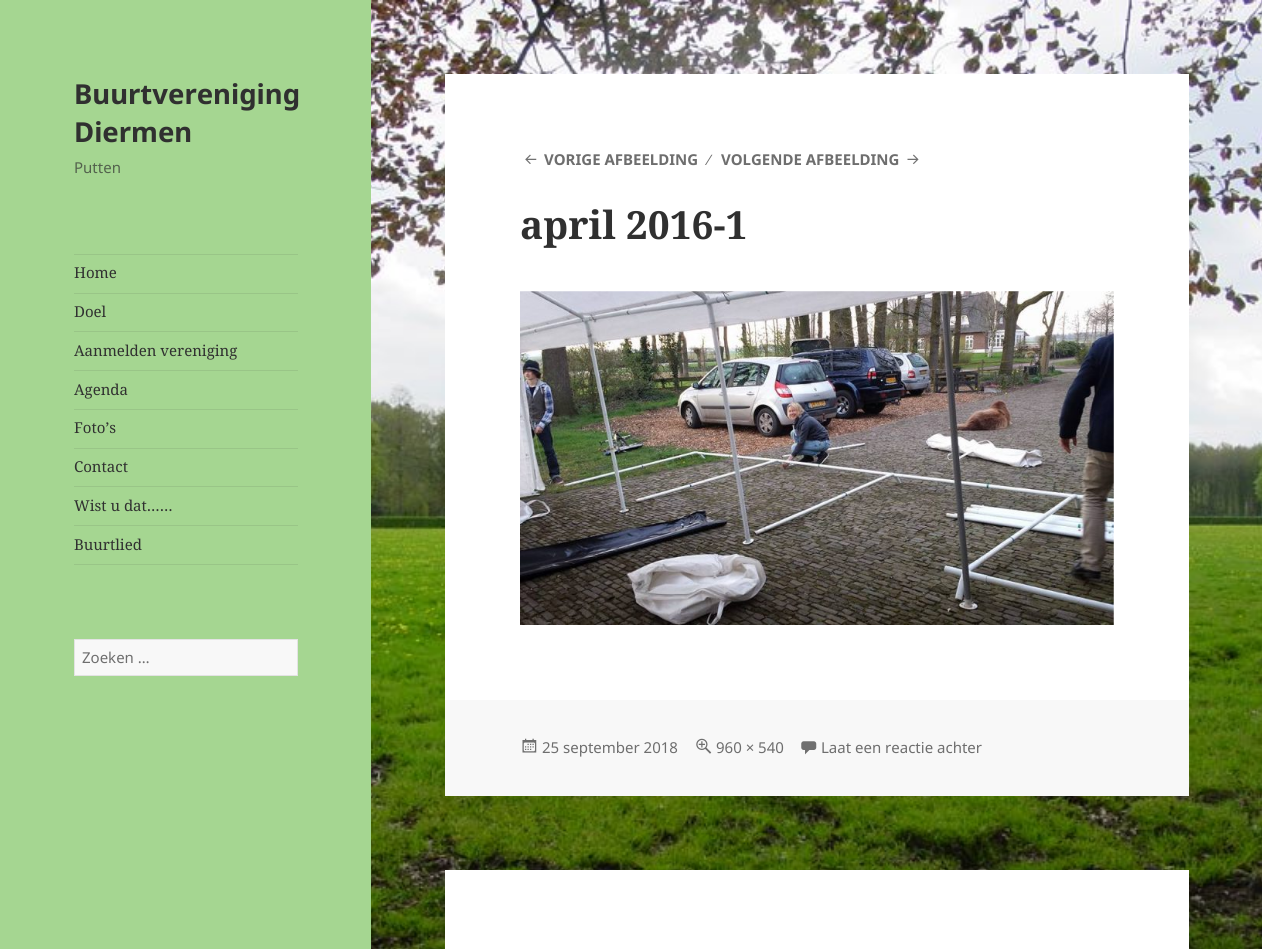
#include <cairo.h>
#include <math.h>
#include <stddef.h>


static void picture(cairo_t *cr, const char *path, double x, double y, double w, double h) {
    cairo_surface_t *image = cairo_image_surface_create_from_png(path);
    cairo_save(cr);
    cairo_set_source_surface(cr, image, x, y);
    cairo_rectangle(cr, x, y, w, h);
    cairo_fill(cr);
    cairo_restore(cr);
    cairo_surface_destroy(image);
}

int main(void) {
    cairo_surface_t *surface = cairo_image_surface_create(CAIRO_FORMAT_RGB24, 1262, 949);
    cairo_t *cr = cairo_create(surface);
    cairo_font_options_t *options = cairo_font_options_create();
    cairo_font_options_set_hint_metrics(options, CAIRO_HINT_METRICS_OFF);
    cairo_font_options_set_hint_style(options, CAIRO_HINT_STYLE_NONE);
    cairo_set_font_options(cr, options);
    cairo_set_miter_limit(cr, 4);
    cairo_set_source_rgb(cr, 1, 1, 1);
    cairo_paint(cr);
    picture(cr, "img1.png", 371, 0, 891, 949);
    cairo_set_source_rgb(cr, 0.647, 0.839, 0.569);
    cairo_rectangle(cr, 0, 0, 371, 949);
    cairo_fill(cr);
    cairo_select_font_face(cr, "Noto Sans", CAIRO_FONT_SLANT_NORMAL, CAIRO_FONT_WEIGHT_BOLD);
    cairo_set_font_size(cr, 27.5);
    cairo_set_source_rgb(cr, 0.188, 0.188, 0.188);
    cairo_move_to(cr, 74, 104);
    cairo_show_text(cr, "Buurtvereniging");
    cairo_move_to(cr, 74, 142);
    cairo_show_text(cr, "Diermen");
    cairo_select_font_face(cr, "Noto Sans", CAIRO_FONT_SLANT_NORMAL, CAIRO_FONT_WEIGHT_NORMAL);
    cairo_set_font_size(cr, 15);
    cairo_set_source_rgb(cr, 0.325, 0.384, 0.302);
    cairo_move_to(cr, 74, 173);
    cairo_show_text(cr, "Putten");
    cairo_set_source_rgb(cr, 0.6, 0.773, 0.529);
    cairo_rectangle(cr, 74, 254, 224, 1);
    cairo_fill(cr);
    cairo_rectangle(cr, 74, 564, 224, 1);
    cairo_fill(cr);
    cairo_select_font_face(cr, "Noto Serif", CAIRO_FONT_SLANT_NORMAL, CAIRO_FONT_WEIGHT_NORMAL);
    cairo_set_source_rgb(cr, 0.188, 0.188, 0.188);
    cairo_move_to(cr, 74, 278);
    cairo_show_text(cr, "Home");
    cairo_set_source_rgb(cr, 0.6, 0.773, 0.529);
    cairo_rectangle(cr, 74, 293, 224, 1);
    cairo_fill(cr);
    cairo_set_source_rgb(cr, 0.188, 0.188, 0.188);
    cairo_move_to(cr, 74, 317);
    cairo_show_text(cr, "Doel");
    cairo_set_source_rgb(cr, 0.6, 0.773, 0.529);
    cairo_rectangle(cr, 74, 331, 224, 1);
    cairo_fill(cr);
    cairo_set_source_rgb(cr, 0.188, 0.188, 0.188);
    cairo_move_to(cr, 74, 356);
    cairo_show_text(cr, "Aanmelden vereniging");
    cairo_set_source_rgb(cr, 0.6, 0.773, 0.529);
    cairo_rectangle(cr, 74, 370, 224, 1);
    cairo_fill(cr);
    cairo_set_source_rgb(cr, 0.188, 0.188, 0.188);
    cairo_move_to(cr, 74, 395);
    cairo_show_text(cr, "Agenda");
    cairo_set_source_rgb(cr, 0.6, 0.773, 0.529);
    cairo_rectangle(cr, 74, 409, 224, 1);
    cairo_fill(cr);
    cairo_set_source_rgb(cr, 0.188, 0.188, 0.188);
    cairo_move_to(cr, 74, 433);
    cairo_show_text(cr, "Foto’s");
    cairo_set_source_rgb(cr, 0.6, 0.773, 0.529);
    cairo_rectangle(cr, 74, 448, 224, 1);
    cairo_fill(cr);
    cairo_set_source_rgb(cr, 0.188, 0.188, 0.188);
    cairo_move_to(cr, 74, 472);
    cairo_show_text(cr, "Contact");
    cairo_set_source_rgb(cr, 0.6, 0.773, 0.529);
    cairo_rectangle(cr, 74, 486, 224, 1);
    cairo_fill(cr);
    cairo_set_source_rgb(cr, 0.188, 0.188, 0.188);
    cairo_move_to(cr, 74, 511);
    cairo_show_text(cr, "Wist u dat……");
    cairo_set_source_rgb(cr, 0.6, 0.773, 0.529);
    cairo_rectangle(cr, 74, 525, 224, 1);
    cairo_fill(cr);
    cairo_set_source_rgb(cr, 0.188, 0.188, 0.188);
    cairo_move_to(cr, 74, 550);
    cairo_show_text(cr, "Buurtlied");
    cairo_set_source_rgb(cr, 0.969, 0.969, 0.969);
    cairo_rectangle(cr, 74.5, 639.5, 223, 36);
    cairo_fill_preserve(cr);
    cairo_set_source_rgb(cr, 0.89, 0.89, 0.89);
    cairo_set_line_width(cr, 1);
    cairo_stroke(cr);
    cairo_select_font_face(cr, "Noto Sans", CAIRO_FONT_SLANT_NORMAL, CAIRO_FONT_WEIGHT_NORMAL);
    cairo_set_source_rgb(cr, 0.431, 0.431, 0.431);
    cairo_move_to(cr, 82, 663);
    cairo_show_text(cr, "Zoeken …");
    cairo_set_source_rgb(cr, 1, 1, 1);
    cairo_rectangle(cr, 445, 74, 744, 626);
    cairo_fill(cr);
    picture(cr, "img2.png", 525, 154, 12, 10);
    cairo_select_font_face(cr, "Noto Sans", CAIRO_FONT_SLANT_NORMAL, CAIRO_FONT_WEIGHT_BOLD);
    cairo_set_source_rgb(cr, 0.431, 0.431, 0.431);
    cairo_move_to(cr, 544, 165);
    cairo_show_text(cr, "VORIGE AFBEELDING");
    cairo_select_font_face(cr, "Liberation Sans", CAIRO_FONT_SLANT_NORMAL, CAIRO_FONT_WEIGHT_NORMAL);
    cairo_move_to(cr, 708, 165);
    cairo_show_text(cr, "∕");
    cairo_select_font_face(cr, "Noto Sans", CAIRO_FONT_SLANT_NORMAL, CAIRO_FONT_WEIGHT_BOLD);
    cairo_move_to(cr, 721, 165);
    cairo_show_text(cr, "VOLGENDE AFBEELDING");
    picture(cr, "img3.png", 907, 154, 12, 11);
    cairo_select_font_face(cr, "Noto Serif", CAIRO_FONT_SLANT_NORMAL, CAIRO_FONT_WEIGHT_BOLD);
    cairo_set_font_size(cr, 38.75);
    cairo_set_source_rgb(cr, 0.188, 0.188, 0.188);
    cairo_move_to(cr, 520, 239);
    cairo_show_text(cr, "april 2016-1");
    picture(cr, "img4.png", 520, 291, 594, 334);
    cairo_set_source_rgb(cr, 0.969, 0.969, 0.969);
    cairo_rectangle(cr, 445, 700, 744, 96);
    cairo_fill(cr);
    picture(cr, "img5.png", 522, 738, 15, 15);
    cairo_select_font_face(cr, "Noto Sans", CAIRO_FONT_SLANT_NORMAL, CAIRO_FONT_WEIGHT_NORMAL);
    cairo_set_font_size(cr, 15);
    cairo_set_source_rgb(cr, 0.431, 0.431, 0.431);
    cairo_move_to(cr, 542, 753);
    cairo_show_text(cr, "25 september 2018");
    picture(cr, "img6.png", 696, 738, 16, 16);
    cairo_move_to(cr, 716, 753);
    cairo_show_text(cr, "960 × 540");
    picture(cr, "img7.png", 801, 741, 16, 14);
    cairo_move_to(cr, 821, 753);
    cairo_show_text(cr, "Laat een reactie achter");
    cairo_set_source_rgb(cr, 1, 1, 1);
    cairo_rectangle(cr, 445, 870, 744, 79);
    cairo_fill(cr);
    cairo_surface_write_to_png(surface, "page.png");
    cairo_font_options_destroy(options);
    cairo_destroy(cr);
    cairo_surface_destroy(surface);
    return 0;
}
